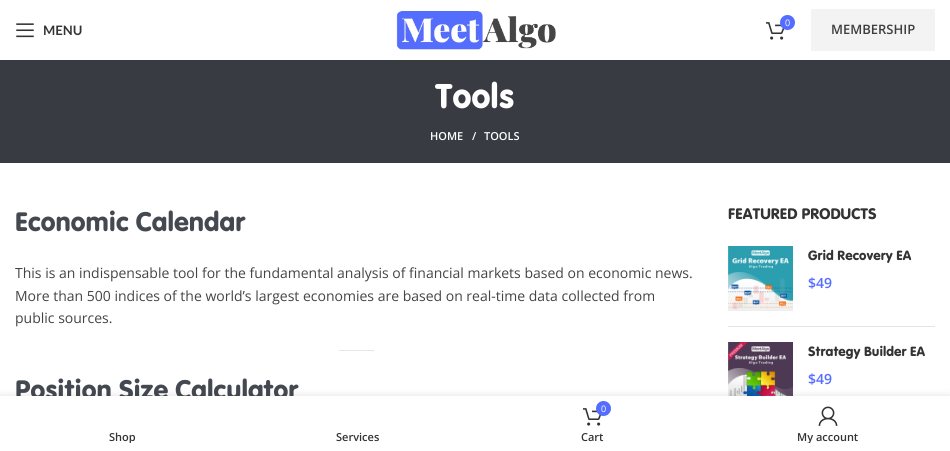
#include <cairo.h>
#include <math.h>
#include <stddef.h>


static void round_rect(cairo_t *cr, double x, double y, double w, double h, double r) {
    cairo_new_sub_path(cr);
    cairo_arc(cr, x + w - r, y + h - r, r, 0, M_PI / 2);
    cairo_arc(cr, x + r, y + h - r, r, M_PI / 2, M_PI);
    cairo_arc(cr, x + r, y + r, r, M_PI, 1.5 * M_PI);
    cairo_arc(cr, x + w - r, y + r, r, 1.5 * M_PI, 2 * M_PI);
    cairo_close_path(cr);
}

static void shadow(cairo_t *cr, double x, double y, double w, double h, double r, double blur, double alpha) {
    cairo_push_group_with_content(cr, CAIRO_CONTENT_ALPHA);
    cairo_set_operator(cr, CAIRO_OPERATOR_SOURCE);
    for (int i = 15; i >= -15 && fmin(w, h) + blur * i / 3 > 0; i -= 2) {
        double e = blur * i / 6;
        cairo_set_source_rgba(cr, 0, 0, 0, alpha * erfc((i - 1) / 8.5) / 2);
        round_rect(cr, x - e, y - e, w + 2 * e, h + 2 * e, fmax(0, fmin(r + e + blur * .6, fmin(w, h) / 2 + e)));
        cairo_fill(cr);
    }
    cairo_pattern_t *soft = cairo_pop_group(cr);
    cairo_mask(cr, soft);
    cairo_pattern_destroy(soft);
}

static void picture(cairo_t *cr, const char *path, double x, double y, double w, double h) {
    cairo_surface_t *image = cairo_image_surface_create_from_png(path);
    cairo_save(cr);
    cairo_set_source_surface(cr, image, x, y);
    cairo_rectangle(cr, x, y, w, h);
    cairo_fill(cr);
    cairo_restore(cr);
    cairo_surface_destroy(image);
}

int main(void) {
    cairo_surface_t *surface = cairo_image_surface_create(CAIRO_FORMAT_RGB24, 950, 451);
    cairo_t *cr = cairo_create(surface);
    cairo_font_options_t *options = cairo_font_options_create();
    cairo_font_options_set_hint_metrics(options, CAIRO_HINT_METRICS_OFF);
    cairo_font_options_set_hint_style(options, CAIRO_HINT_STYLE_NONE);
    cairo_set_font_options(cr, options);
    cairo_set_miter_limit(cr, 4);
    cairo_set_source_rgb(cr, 1, 1, 1);
    cairo_paint(cr);
    picture(cr, "img1.png", 16, 23, 18, 15);
    cairo_select_font_face(cr, "Lato", CAIRO_FONT_SLANT_NORMAL, CAIRO_FONT_WEIGHT_BOLD);
    cairo_set_font_size(cr, 13);
    cairo_set_source_rgb(cr, 0.2, 0.2, 0.2);
    cairo_move_to(cr, 43, 35);
    cairo_show_text(cr, "MENU");
    picture(cr, "img2.png", 396, 11, 160, 39);
    picture(cr, "img3.png", 766, 22, 19, 18);
    cairo_set_source_rgb(cr, 0.329, 0.427, 1);
    cairo_arc(cr, 787.5, 22.5, 7.5, 0, 2 * M_PI);
    cairo_fill(cr);
    cairo_select_font_face(cr, "Open Sans", CAIRO_FONT_SLANT_NORMAL, CAIRO_FONT_WEIGHT_NORMAL);
    cairo_set_font_size(cr, 9);
    cairo_set_source_rgb(cr, 1, 1, 1);
    cairo_move_to(cr, 785, 26);
    cairo_show_text(cr, "0");
    cairo_set_source_rgb(cr, 0.953, 0.953, 0.953);
    cairo_rectangle(cr, 811, 9, 124, 42);
    cairo_fill(cr);
    cairo_select_font_face(cr, "Open Sans SemiBold", CAIRO_FONT_SLANT_NORMAL, CAIRO_FONT_WEIGHT_NORMAL);
    cairo_set_font_size(cr, 13);
    cairo_set_source_rgb(cr, 0.243, 0.243, 0.243);
    cairo_move_to(cr, 831, 34);
    cairo_show_text(cr, "MEMBERSHIP");
    cairo_set_source_rgb(cr, 0.22, 0.235, 0.259);
    cairo_rectangle(cr, 0, 60, 950, 103);
    cairo_fill(cr);
    cairo_select_font_face(cr, "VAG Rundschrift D", CAIRO_FONT_SLANT_NORMAL, CAIRO_FONT_WEIGHT_NORMAL);
    cairo_set_font_size(cr, 36);
    cairo_set_source_rgb(cr, 1, 1, 1);
    cairo_move_to(cr, 435, 108);
    cairo_show_text(cr, "Tools");
    cairo_select_font_face(cr, "Open Sans SemiBold", CAIRO_FONT_SLANT_NORMAL, CAIRO_FONT_WEIGHT_NORMAL);
    cairo_set_font_size(cr, 11);
    cairo_move_to(cr, 430, 140);
    cairo_show_text(cr, "HOME");
    cairo_move_to(cr, 472, 140);
    cairo_show_text(cr, "/");
    cairo_move_to(cr, 484, 140);
    cairo_show_text(cr, "TOOLS");
    cairo_select_font_face(cr, "VAG Rundschrift D", CAIRO_FONT_SLANT_NORMAL, CAIRO_FONT_WEIGHT_NORMAL);
    cairo_set_font_size(cr, 28);
    cairo_set_source_rgb(cr, 0.267, 0.286, 0.318);
    cairo_move_to(cr, 15, 231);
    cairo_show_text(cr, "Economic Calendar");
    cairo_select_font_face(cr, "Open Sans", CAIRO_FONT_SLANT_NORMAL, CAIRO_FONT_WEIGHT_NORMAL);
    cairo_set_font_size(cr, 14);
    cairo_set_source_rgb(cr, 0.267, 0.267, 0.267);
    cairo_move_to(cr, 15, 278);
    cairo_show_text(cr, "This is an indispensable tool for the fundamental analysis of financial markets based on economic news.");
    cairo_move_to(cr, 15, 301);
    cairo_show_text(cr, "More than 500 indices of the world’s largest economies are based on real-time data collected from");
    cairo_move_to(cr, 15, 323);
    cairo_show_text(cr, "public sources.");
    cairo_set_source_rgb(cr, 0.902, 0.902, 0.902);
    cairo_rectangle(cr, 339, 350, 35, 1);
    cairo_fill(cr);
    cairo_select_font_face(cr, "VAG Rundschrift D", CAIRO_FONT_SLANT_NORMAL, CAIRO_FONT_WEIGHT_NORMAL);
    cairo_set_font_size(cr, 28);
    cairo_set_source_rgb(cr, 0.267, 0.286, 0.318);
    cairo_move_to(cr, 15, 399);
    cairo_show_text(cr, "Position Size Calculator");
    cairo_set_font_size(cr, 16);
    cairo_set_source_rgb(cr, 0.2, 0.2, 0.2);
    cairo_move_to(cr, 728, 219);
    cairo_show_text(cr, "FEATURED PRODUCTS");
    cairo_set_source_rgb(cr, 0.894, 0.894, 0.894);
    cairo_rectangle(cr, 728, 326, 207, 1);
    cairo_fill(cr);
    picture(cr, "img4.png", 728, 246, 65, 65);
    cairo_set_font_size(cr, 14);
    cairo_set_source_rgb(cr, 0.2, 0.2, 0.2);
    cairo_move_to(cr, 808, 260);
    cairo_show_text(cr, "Grid Recovery EA");
    cairo_select_font_face(cr, "Open Sans SemiBold", CAIRO_FONT_SLANT_NORMAL, CAIRO_FONT_WEIGHT_NORMAL);
    cairo_set_source_rgb(cr, 0.329, 0.427, 1);
    cairo_move_to(cr, 808, 288);
    cairo_show_text(cr, "$49");
    picture(cr, "img5.png", 728, 342, 65, 54);
    cairo_select_font_face(cr, "VAG Rundschrift D", CAIRO_FONT_SLANT_NORMAL, CAIRO_FONT_WEIGHT_NORMAL);
    cairo_set_source_rgb(cr, 0.2, 0.2, 0.2);
    cairo_move_to(cr, 808, 356);
    cairo_show_text(cr, "Strategy Builder EA");
    cairo_select_font_face(cr, "Open Sans SemiBold", CAIRO_FONT_SLANT_NORMAL, CAIRO_FONT_WEIGHT_NORMAL);
    cairo_set_source_rgb(cr, 0.329, 0.427, 1);
    cairo_move_to(cr, 808, 384);
    cairo_show_text(cr, "$49");
    cairo_set_source_rgb(cr, 0, 0, 0);
    shadow(cr, 0, 396, 950, 55, 0, 4.5, 0.12);
    cairo_set_source_rgb(cr, 1, 1, 1);
    cairo_rectangle(cr, 0, 396, 950, 55);
    cairo_fill(cr);
    cairo_save(cr);
    cairo_rectangle(cr, 15, 430, 215, 13);
    cairo_clip(cr);
    cairo_set_font_size(cr, 11);
    cairo_set_source_rgb(cr, 0.2, 0.2, 0.2);
    cairo_move_to(cr, 109, 441);
    cairo_show_text(cr, "Shop");
    cairo_restore(cr);
    cairo_set_font_size(cr, 11);
    cairo_set_source_rgb(cr, 0.2, 0.2, 0.2);
    cairo_move_to(cr, 336, 441);
    cairo_show_text(cr, "Services");
    picture(cr, "img3.png", 583, 408, 19, 18);
    cairo_set_source_rgb(cr, 0.329, 0.427, 1);
    cairo_arc(cr, 603.5, 408.5, 7.5, 0, 2 * M_PI);
    cairo_fill(cr);
    cairo_select_font_face(cr, "Open Sans", CAIRO_FONT_SLANT_NORMAL, CAIRO_FONT_WEIGHT_NORMAL);
    cairo_set_font_size(cr, 9);
    cairo_set_source_rgb(cr, 1, 1, 1);
    cairo_move_to(cr, 601, 412);
    cairo_show_text(cr, "0");
    cairo_select_font_face(cr, "Open Sans SemiBold", CAIRO_FONT_SLANT_NORMAL, CAIRO_FONT_WEIGHT_NORMAL);
    cairo_set_font_size(cr, 11);
    cairo_set_source_rgb(cr, 0.2, 0.2, 0.2);
    cairo_move_to(cr, 581, 441);
    cairo_show_text(cr, "Cart");
    picture(cr, "img6.png", 818, 406, 20, 20);
    cairo_save(cr);
    cairo_rectangle(cr, 720, 430, 215, 13);
    cairo_clip(cr);
    cairo_move_to(cr, 797, 441);
    cairo_show_text(cr, "My account");
    cairo_restore(cr);
    cairo_surface_write_to_png(surface, "page.png");
    cairo_font_options_destroy(options);
    cairo_destroy(cr);
    cairo_surface_destroy(surface);
    return 0;
}
